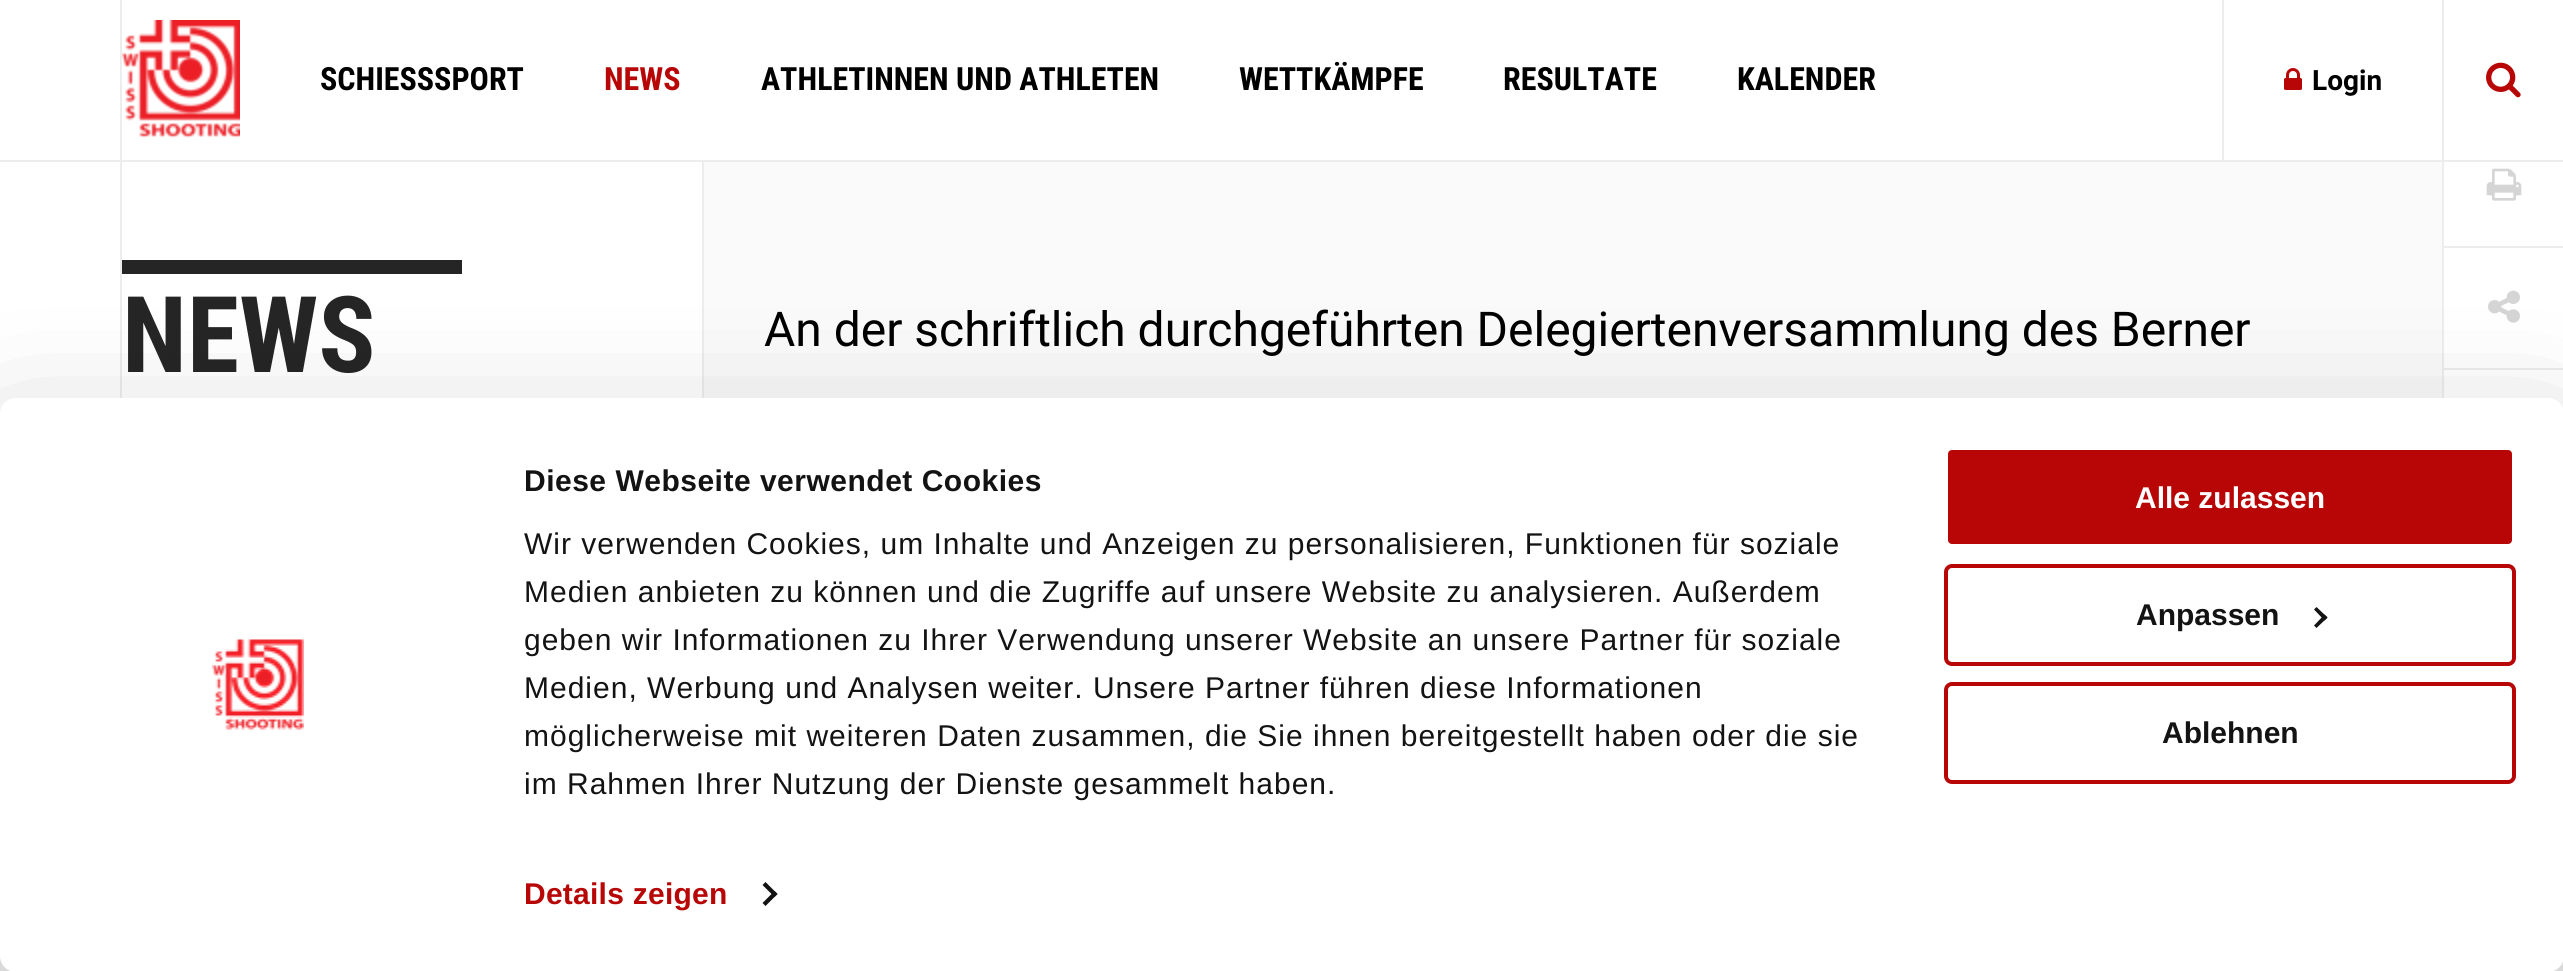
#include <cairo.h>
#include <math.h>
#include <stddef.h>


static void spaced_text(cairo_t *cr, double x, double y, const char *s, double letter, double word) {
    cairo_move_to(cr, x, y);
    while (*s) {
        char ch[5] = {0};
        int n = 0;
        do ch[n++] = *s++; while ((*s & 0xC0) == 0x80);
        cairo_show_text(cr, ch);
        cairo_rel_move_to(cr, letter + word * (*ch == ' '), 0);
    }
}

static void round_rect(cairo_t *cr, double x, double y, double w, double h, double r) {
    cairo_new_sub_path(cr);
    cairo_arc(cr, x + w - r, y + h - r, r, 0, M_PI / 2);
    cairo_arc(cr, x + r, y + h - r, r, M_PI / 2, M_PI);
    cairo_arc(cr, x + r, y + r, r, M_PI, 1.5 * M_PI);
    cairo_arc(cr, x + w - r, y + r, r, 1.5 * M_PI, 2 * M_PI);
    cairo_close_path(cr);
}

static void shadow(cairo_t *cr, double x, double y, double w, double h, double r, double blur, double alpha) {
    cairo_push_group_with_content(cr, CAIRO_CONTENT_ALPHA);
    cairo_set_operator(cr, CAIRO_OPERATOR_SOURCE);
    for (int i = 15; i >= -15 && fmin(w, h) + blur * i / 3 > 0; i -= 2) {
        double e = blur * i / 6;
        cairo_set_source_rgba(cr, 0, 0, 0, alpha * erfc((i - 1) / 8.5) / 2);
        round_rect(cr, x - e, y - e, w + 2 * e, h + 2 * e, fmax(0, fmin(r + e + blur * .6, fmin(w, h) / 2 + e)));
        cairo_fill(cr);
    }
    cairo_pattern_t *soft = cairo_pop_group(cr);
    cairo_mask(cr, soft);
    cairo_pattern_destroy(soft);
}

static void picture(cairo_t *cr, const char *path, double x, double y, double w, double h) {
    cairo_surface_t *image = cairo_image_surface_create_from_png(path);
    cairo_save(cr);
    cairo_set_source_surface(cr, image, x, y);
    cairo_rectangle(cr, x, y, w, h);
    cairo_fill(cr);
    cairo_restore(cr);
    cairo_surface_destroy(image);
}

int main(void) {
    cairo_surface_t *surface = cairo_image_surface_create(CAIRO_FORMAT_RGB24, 2563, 971);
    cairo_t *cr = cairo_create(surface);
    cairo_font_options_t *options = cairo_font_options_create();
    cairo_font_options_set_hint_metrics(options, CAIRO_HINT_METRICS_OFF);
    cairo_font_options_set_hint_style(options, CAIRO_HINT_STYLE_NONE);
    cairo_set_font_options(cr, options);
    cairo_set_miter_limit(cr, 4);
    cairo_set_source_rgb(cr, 1, 1, 1);
    cairo_paint(cr);
    cairo_set_source_rgb(cr, 0.929, 0.929, 0.929);
    cairo_rectangle(cr, 0, 160, 2563, 2);
    cairo_fill(cr);
    cairo_rectangle(cr, 2442, 0, 2, 160);
    cairo_fill(cr);
    cairo_rectangle(cr, 120, 0, 2, 160);
    cairo_fill(cr);
    picture(cr, "img1.png", 122, 20, 118, 118);
    cairo_select_font_face(cr, "Roboto Condensed", CAIRO_FONT_SLANT_NORMAL, CAIRO_FONT_WEIGHT_BOLD);
    cairo_set_font_size(cr, 32);
    cairo_set_source_rgb(cr, 0, 0, 0);
    cairo_move_to(cr, 320, 90);
    cairo_show_text(cr, "SCHIESSSPORT");
    cairo_set_source_rgb(cr, 0.722, 0.024, 0.024);
    cairo_move_to(cr, 604, 90);
    cairo_show_text(cr, "NEWS");
    cairo_set_source_rgb(cr, 0, 0, 0);
    cairo_move_to(cr, 761, 90);
    cairo_show_text(cr, "ATHLETINNEN UND ATHLETEN");
    cairo_move_to(cr, 1239, 90);
    cairo_show_text(cr, "WETTKÄMPFE");
    cairo_move_to(cr, 1503, 90);
    cairo_show_text(cr, "RESULTATE");
    cairo_move_to(cr, 1737, 90);
    cairo_show_text(cr, "KALENDER");
    cairo_set_source_rgb(cr, 0.929, 0.929, 0.929);
    cairo_rectangle(cr, 2222, 0, 2, 160);
    cairo_fill(cr);
    picture(cr, "img2.png", 2284, 68, 18, 22);
    cairo_select_font_face(cr, "Roboto", CAIRO_FONT_SLANT_NORMAL, CAIRO_FONT_WEIGHT_BOLD);
    cairo_set_font_size(cr, 28);
    cairo_set_source_rgb(cr, 0, 0, 0);
    cairo_move_to(cr, 2312, 90);
    cairo_show_text(cr, "Login");
    picture(cr, "img3.png", 2486, 62, 35, 36);
    cairo_set_source_rgb(cr, 0.929, 0.929, 0.929);
    cairo_rectangle(cr, 2442, 162, 2, 236);
    cairo_fill(cr);
    cairo_rectangle(cr, 120, 162, 2, 236);
    cairo_fill(cr);
    cairo_set_source_rgb(cr, 0.145, 0.145, 0.145);
    cairo_rectangle(cr, 122, 260, 340, 14);
    cairo_fill(cr);
    cairo_select_font_face(cr, "Roboto Condensed", CAIRO_FONT_SLANT_NORMAL, CAIRO_FONT_WEIGHT_BOLD);
    cairo_set_font_size(cr, 106);
    cairo_move_to(cr, 122, 372);
    cairo_show_text(cr, "NEWS");
    cairo_set_source_rgb(cr, 0.929, 0.929, 0.929);
    cairo_rectangle(cr, 702, 162, 2, 236);
    cairo_fill(cr);
    cairo_set_source_rgb(cr, 0.98, 0.98, 0.98);
    cairo_rectangle(cr, 704, 162, 1738, 236);
    cairo_fill(cr);
    cairo_select_font_face(cr, "Roboto", CAIRO_FONT_SLANT_NORMAL, CAIRO_FONT_WEIGHT_NORMAL);
    cairo_set_font_size(cr, 48);
    cairo_set_source_rgb(cr, 0, 0, 0);
    cairo_move_to(cr, 764, 346);
    cairo_show_text(cr, "An der schriftlich durchgeführten Delegiertenversammlung des Berner");
    cairo_set_source_rgb(cr, 0.929, 0.929, 0.929);
    cairo_rectangle(cr, 2444, 246, 119, 2);
    cairo_fill(cr);
    picture(cr, "img4.png", 2486, 168, 36, 33);
    cairo_rectangle(cr, 2444, 368, 119, 2);
    cairo_fill(cr);
    picture(cr, "img5.png", 2488, 290, 32, 33);
    cairo_set_source_rgb(cr, 0, 0, 0);
    shadow(cr, 0, 458, 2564, 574, 16, 70, 0.3);
    cairo_set_source_rgb(cr, 1, 1, 1);
    round_rect(cr, 0, 398, 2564, 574, 16);
    cairo_fill(cr);
    picture(cr, "img6.png", 212, 639, 92, 91);
    cairo_select_font_face(cr, "Liberation Sans", CAIRO_FONT_SLANT_NORMAL, CAIRO_FONT_WEIGHT_BOLD);
    cairo_set_font_size(cr, 30);
    cairo_set_source_rgb(cr, 0.078, 0.078, 0.078);
    spaced_text(cr, 524, 491, "Diese Webseite verwendet Cookies", 0.5, 0);
    cairo_select_font_face(cr, "Liberation Sans", CAIRO_FONT_SLANT_NORMAL, CAIRO_FONT_WEIGHT_NORMAL);
    spaced_text(cr, 524, 554, "Wir verwenden Cookies, um Inhalte und Anzeigen zu personalisieren, Funktionen für soziale", 1, 0);
    spaced_text(cr, 524, 602, "Medien anbieten zu können und die Zugriffe auf unsere Website zu analysieren. Außerdem", 1, 0);
    spaced_text(cr, 524, 650, "geben wir Informationen zu Ihrer Verwendung unserer Website an unsere Partner für soziale", 1, 0);
    spaced_text(cr, 524, 698, "Medien, Werbung und Analysen weiter. Unsere Partner führen diese Informationen", 1, 0);
    spaced_text(cr, 524, 746, "möglicherweise mit weiteren Daten zusammen, die Sie ihnen bereitgestellt haben oder die sie", 1, 0);
    spaced_text(cr, 524, 794, "im Rahmen Ihrer Nutzung der Dienste gesammelt haben.", 1, 0);
    cairo_select_font_face(cr, "Liberation Sans", CAIRO_FONT_SLANT_NORMAL, CAIRO_FONT_WEIGHT_BOLD);
    cairo_set_source_rgb(cr, 0.722, 0.024, 0.024);
    spaced_text(cr, 524, 904, "Details zeigen", 0.25, 0);
    cairo_set_source_rgb(cr, 0.078, 0.078, 0.078);
    cairo_new_path(cr);
    cairo_move_to(cr, 765.5, 882);
    cairo_line_to(cr, 777.5, 894);
    cairo_line_to(cr, 774.5, 897);
    cairo_line_to(cr, 762.5, 885);
    cairo_close_path(cr);
    cairo_fill(cr);
    cairo_new_path(cr);
    cairo_move_to(cr, 774.5, 891);
    cairo_line_to(cr, 777.5, 894);
    cairo_line_to(cr, 765.5, 906);
    cairo_line_to(cr, 762.5, 903);
    cairo_close_path(cr);
    cairo_fill(cr);
    cairo_set_source_rgb(cr, 0.722, 0.024, 0.024);
    round_rect(cr, 1946, 448, 568, 98, 6);
    cairo_fill_preserve(cr);
    cairo_set_source_rgb(cr, 1, 1, 1);
    cairo_set_line_width(cr, 4);
    cairo_stroke(cr);
    cairo_move_to(cr, 2135, 508);
    cairo_show_text(cr, "Alle zulassen");
    round_rect(cr, 1946, 566, 568, 98, 6);
    cairo_set_source_rgb(cr, 0.722, 0.024, 0.024);
    cairo_stroke(cr);
    cairo_set_source_rgb(cr, 0.078, 0.078, 0.078);
    cairo_move_to(cr, 2136, 625);
    cairo_show_text(cr, "Anpassen");
    cairo_new_path(cr);
    cairo_move_to(cr, 2316.5, 607);
    cairo_line_to(cr, 2327.5, 617.5);
    cairo_line_to(cr, 2324.5, 620.5);
    cairo_line_to(cr, 2314, 609.5);
    cairo_close_path(cr);
    cairo_fill(cr);
    cairo_new_path(cr);
    cairo_move_to(cr, 2324.5, 614.5);
    cairo_line_to(cr, 2327.5, 617.5);
    cairo_line_to(cr, 2316.5, 628);
    cairo_line_to(cr, 2314, 625.5);
    cairo_close_path(cr);
    cairo_fill(cr);
    round_rect(cr, 1946, 684, 568, 98, 6);
    cairo_set_source_rgb(cr, 0.722, 0.024, 0.024);
    cairo_stroke(cr);
    cairo_set_source_rgb(cr, 0.078, 0.078, 0.078);
    cairo_move_to(cr, 2162, 743);
    cairo_show_text(cr, "Ablehnen");
    cairo_surface_write_to_png(surface, "page.png");
    cairo_font_options_destroy(options);
    cairo_destroy(cr);
    cairo_surface_destroy(surface);
    return 0;
}
